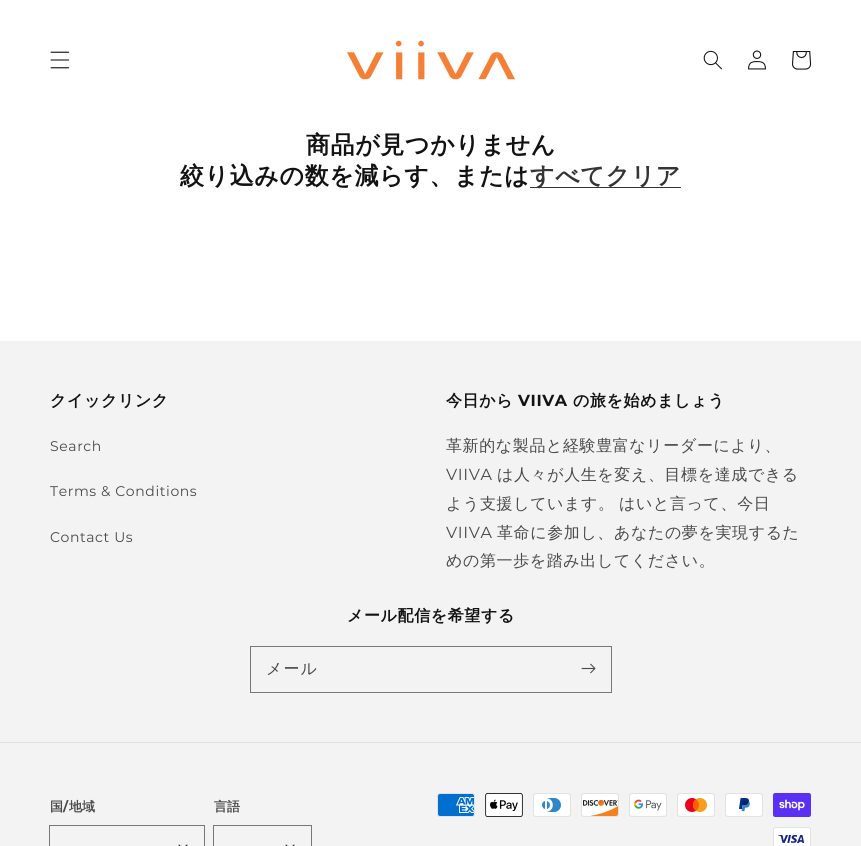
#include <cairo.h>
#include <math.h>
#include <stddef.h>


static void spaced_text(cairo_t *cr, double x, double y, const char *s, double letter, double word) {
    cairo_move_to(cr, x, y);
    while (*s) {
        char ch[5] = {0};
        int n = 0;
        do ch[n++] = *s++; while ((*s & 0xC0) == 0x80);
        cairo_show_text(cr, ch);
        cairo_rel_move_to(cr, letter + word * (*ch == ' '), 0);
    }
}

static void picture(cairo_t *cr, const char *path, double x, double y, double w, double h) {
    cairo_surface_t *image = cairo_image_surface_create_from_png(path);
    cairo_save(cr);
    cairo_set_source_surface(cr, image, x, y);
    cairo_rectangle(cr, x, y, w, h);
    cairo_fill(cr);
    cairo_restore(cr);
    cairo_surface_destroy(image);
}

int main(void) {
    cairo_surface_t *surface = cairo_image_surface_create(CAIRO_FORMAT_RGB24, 861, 846);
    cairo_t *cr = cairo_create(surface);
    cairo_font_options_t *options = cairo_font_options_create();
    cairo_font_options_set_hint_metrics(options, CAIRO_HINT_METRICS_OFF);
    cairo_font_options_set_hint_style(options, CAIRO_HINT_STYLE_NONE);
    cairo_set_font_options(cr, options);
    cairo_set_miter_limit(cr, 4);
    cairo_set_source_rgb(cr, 1, 1, 1);
    cairo_paint(cr);
    picture(cr, "img1.png", 50, 51, 20, 18);
    picture(cr, "img2.png", 347, 40, 168, 40);
    picture(cr, "img3.png", 703, 50, 19, 20);
    picture(cr, "img4.png", 748, 50, 18, 20);
    picture(cr, "img5.png", 792, 51, 20, 19);
    cairo_select_font_face(cr, "WenQuanYi Zen Hei", CAIRO_FONT_SLANT_NORMAL, CAIRO_FONT_WEIGHT_BOLD);
    cairo_set_font_size(cr, 24);
    cairo_set_source_rgb(cr, 0.071, 0.071, 0.071);
    spaced_text(cr, 306, 153, "商品が見つかりません", 0.6, 0);
    spaced_text(cr, 180, 184, "絞り込みの数を減らす、または", 0.6, 0);
    cairo_set_source_rgb(cr, 0.212, 0.212, 0.212);
    cairo_rectangle(cr, 530, 187, 151, 1);
    cairo_fill(cr);
    cairo_set_source_rgb(cr, 0.208, 0.208, 0.208);
    spaced_text(cr, 530, 184, "すべてクリア", 0.6, 0);
    cairo_set_source_rgb(cr, 0.953, 0.953, 0.953);
    cairo_rectangle(cr, 0, 341, 861, 505);
    cairo_fill(cr);
    cairo_set_font_size(cr, 16);
    cairo_set_source_rgb(cr, 0.071, 0.071, 0.071);
    spaced_text(cr, 50, 406, "クイックリンク", 0.6, 0);
    cairo_select_font_face(cr, "Montserrat", CAIRO_FONT_SLANT_NORMAL, CAIRO_FONT_WEIGHT_NORMAL);
    cairo_set_font_size(cr, 14);
    cairo_set_source_rgb(cr, 0.29, 0.29, 0.29);
    spaced_text(cr, 50, 451, "Search", 0.6, 0);
    spaced_text(cr, 50, 496, "Terms & Conditions", 0.6, 0);
    spaced_text(cr, 50, 542, "Contact Us", 0.6, 0);
    cairo_select_font_face(cr, "WenQuanYi Zen Hei", CAIRO_FONT_SLANT_NORMAL, CAIRO_FONT_WEIGHT_BOLD);
    cairo_set_font_size(cr, 16);
    cairo_set_source_rgb(cr, 0.071, 0.071, 0.071);
    spaced_text(cr, 446, 406, "今日から", 0.6, 0);
    cairo_select_font_face(cr, "Montserrat", CAIRO_FONT_SLANT_NORMAL, CAIRO_FONT_WEIGHT_BOLD);
    spaced_text(cr, 518, 406, "VIIVA", 0.6, 0);
    cairo_select_font_face(cr, "WenQuanYi Zen Hei", CAIRO_FONT_SLANT_NORMAL, CAIRO_FONT_WEIGHT_BOLD);
    spaced_text(cr, 573, 406, "の旅を始めましょう", 0.6, 0);
    cairo_select_font_face(cr, "WenQuanYi Zen Hei Medium", CAIRO_FONT_SLANT_NORMAL, CAIRO_FONT_WEIGHT_NORMAL);
    cairo_set_source_rgb(cr, 0.29, 0.29, 0.29);
    spaced_text(cr, 446, 451, "革新的な製品と経験豊富なリーダーにより、", 0.6, 0);
    cairo_select_font_face(cr, "Montserrat", CAIRO_FONT_SLANT_NORMAL, CAIRO_FONT_WEIGHT_NORMAL);
    spaced_text(cr, 446, 480, "VIIVA", 0.6, 0);
    cairo_select_font_face(cr, "WenQuanYi Zen Hei Medium", CAIRO_FONT_SLANT_NORMAL, CAIRO_FONT_WEIGHT_NORMAL);
    spaced_text(cr, 497, 480, "は人々が人生を変え、目標を達成できる", 0.6, 0);
    spaced_text(cr, 446, 509, "よう支援しています。 はいと言って、今日", 0.6, -1);
    cairo_select_font_face(cr, "Montserrat", CAIRO_FONT_SLANT_NORMAL, CAIRO_FONT_WEIGHT_NORMAL);
    spaced_text(cr, 446, 538, "VIIVA", 0.6, 0);
    cairo_select_font_face(cr, "WenQuanYi Zen Hei Medium", CAIRO_FONT_SLANT_NORMAL, CAIRO_FONT_WEIGHT_NORMAL);
    spaced_text(cr, 497, 538, "革命に参加し、あなたの夢を実現するた", 0.6, 0);
    spaced_text(cr, 446, 566, "めの第一歩を踏み出してください。", 0.6, 0);
    cairo_select_font_face(cr, "WenQuanYi Zen Hei", CAIRO_FONT_SLANT_NORMAL, CAIRO_FONT_WEIGHT_BOLD);
    cairo_set_source_rgb(cr, 0.071, 0.071, 0.071);
    spaced_text(cr, 347, 621, "メール配信を希望する", 0.6, 0);
    cairo_rectangle(cr, 250.5, 646.5, 361, 46);
    cairo_set_source_rgb(cr, 0.467, 0.467, 0.467);
    cairo_set_line_width(cr, 1);
    cairo_stroke(cr);
    cairo_select_font_face(cr, "WenQuanYi Zen Hei Medium", CAIRO_FONT_SLANT_NORMAL, CAIRO_FONT_WEIGHT_NORMAL);
    cairo_set_source_rgb(cr, 0.29, 0.29, 0.29);
    spaced_text(cr, 266, 674, "メール", 1, 0);
    picture(cr, "img6.png", 581, 663, 15, 11);
    cairo_set_source_rgb(cr, 0.882, 0.882, 0.882);
    cairo_rectangle(cr, 0, 742, 861, 1);
    cairo_fill(cr);
    cairo_select_font_face(cr, "WenQuanYi Zen Hei", CAIRO_FONT_SLANT_NORMAL, CAIRO_FONT_WEIGHT_BOLD);
    cairo_set_font_size(cr, 13);
    cairo_set_source_rgb(cr, 0.29, 0.29, 0.29);
    cairo_move_to(cr, 50, 811);
    cairo_show_text(cr, "国");
    cairo_select_font_face(cr, "Montserrat", CAIRO_FONT_SLANT_NORMAL, CAIRO_FONT_WEIGHT_BOLD);
    cairo_move_to(cr, 63, 811);
    cairo_show_text(cr, "/");
    cairo_select_font_face(cr, "WenQuanYi Zen Hei", CAIRO_FONT_SLANT_NORMAL, CAIRO_FONT_WEIGHT_BOLD);
    cairo_move_to(cr, 69, 811);
    cairo_show_text(cr, "地域");
    cairo_rectangle(cr, 49.5, 825.5, 155, 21);
    cairo_set_source_rgb(cr, 0.467, 0.467, 0.467);
    cairo_stroke(cr);
    picture(cr, "img7.png", 178, 844, 10, 2);
    cairo_set_source_rgb(cr, 0.29, 0.29, 0.29);
    cairo_move_to(cr, 214, 811);
    cairo_show_text(cr, "言語");
    cairo_rectangle(cr, 213.5, 825.5, 98, 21);
    cairo_set_source_rgb(cr, 0.467, 0.467, 0.467);
    cairo_stroke(cr);
    picture(cr, "img7.png", 285, 844, 10, 2);
    picture(cr, "img8.png", 437, 793, 38, 24);
    picture(cr, "img9.png", 485, 793, 38, 24);
    picture(cr, "img10.png", 533, 793, 38, 24);
    picture(cr, "img11.png", 581, 793, 38, 24);
    picture(cr, "img12.png", 629, 793, 38, 24);
    picture(cr, "img13.png", 677, 793, 38, 24);
    picture(cr, "img14.png", 725, 793, 38, 24);
    picture(cr, "img15.png", 773, 793, 38, 24);
    picture(cr, "img16.png", 773, 827, 38, 19);
    cairo_surface_write_to_png(surface, "page.png");
    cairo_font_options_destroy(options);
    cairo_destroy(cr);
    cairo_surface_destroy(surface);
    return 0;
}
